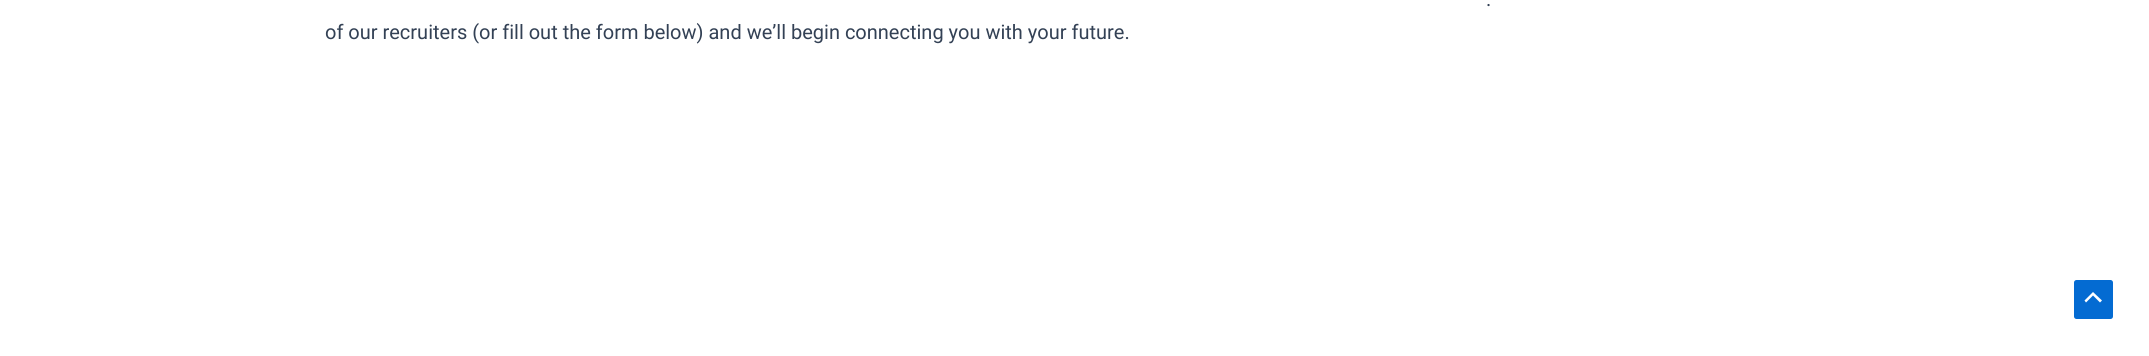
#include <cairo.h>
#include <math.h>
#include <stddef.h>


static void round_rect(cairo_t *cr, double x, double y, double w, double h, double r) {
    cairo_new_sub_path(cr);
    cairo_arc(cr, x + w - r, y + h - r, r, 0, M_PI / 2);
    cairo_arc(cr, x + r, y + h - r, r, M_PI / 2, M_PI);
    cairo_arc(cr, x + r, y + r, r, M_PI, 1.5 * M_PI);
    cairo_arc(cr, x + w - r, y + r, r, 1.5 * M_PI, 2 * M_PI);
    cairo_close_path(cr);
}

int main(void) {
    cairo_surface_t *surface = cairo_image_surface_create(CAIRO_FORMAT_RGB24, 2149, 356);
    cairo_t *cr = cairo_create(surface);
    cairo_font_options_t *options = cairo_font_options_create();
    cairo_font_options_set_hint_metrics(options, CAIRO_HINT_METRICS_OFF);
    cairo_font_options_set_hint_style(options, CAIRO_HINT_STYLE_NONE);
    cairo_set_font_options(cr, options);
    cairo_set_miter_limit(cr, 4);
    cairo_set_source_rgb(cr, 1, 1, 1);
    cairo_paint(cr);
    cairo_select_font_face(cr, "Roboto", CAIRO_FONT_SLANT_NORMAL, CAIRO_FONT_WEIGHT_NORMAL);
    cairo_set_font_size(cr, 20);
    cairo_set_source_rgb(cr, 0.2, 0.255, 0.333);
    cairo_move_to(cr, 1486, 6);
    cairo_show_text(cr, ".");
    cairo_move_to(cr, 325, 39);
    cairo_show_text(cr, "of our recruiters (or fill out the form below) and we’ll begin connecting you with your future.");
    cairo_set_source_rgb(cr, 0.016, 0.42, 0.824);
    round_rect(cr, 2074, 280, 39, 39, 2.5);
    cairo_fill(cr);
    cairo_set_source_rgb(cr, 1, 1, 1);
    cairo_new_path(cr);
    cairo_move_to(cr, 2102, 300.5);
    cairo_line_to(cr, 2093, 292);
    cairo_line_to(cr, 2084.5, 300.5);
    cairo_line_to(cr, 2086, 302.5);
    cairo_line_to(cr, 2093, 295.5);
    cairo_line_to(cr, 2100, 302.5);
    cairo_close_path(cr);
    cairo_fill(cr);
    cairo_surface_write_to_png(surface, "page.png");
    cairo_font_options_destroy(options);
    cairo_destroy(cr);
    cairo_surface_destroy(surface);
    return 0;
}
